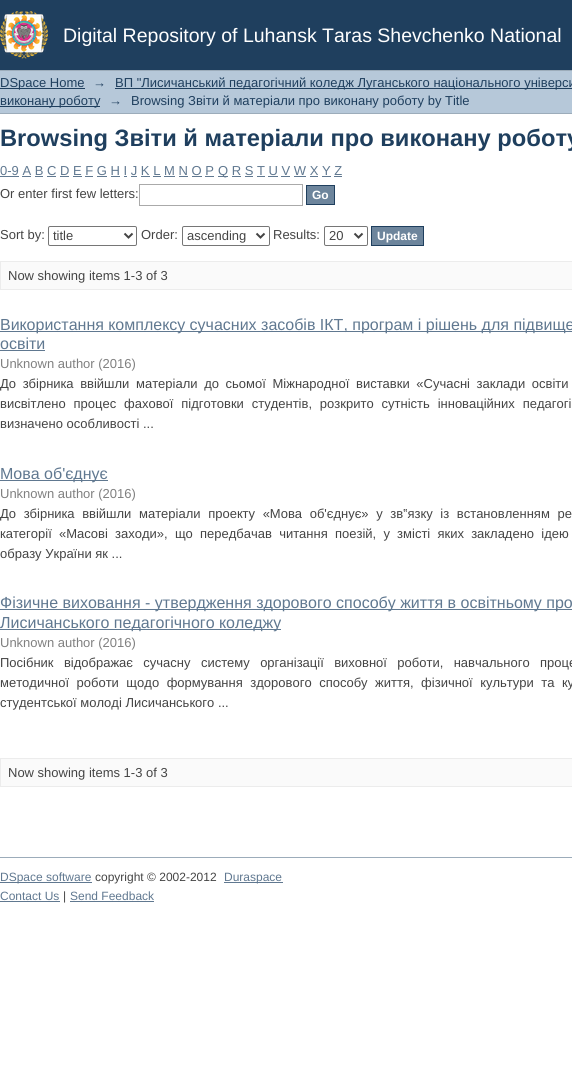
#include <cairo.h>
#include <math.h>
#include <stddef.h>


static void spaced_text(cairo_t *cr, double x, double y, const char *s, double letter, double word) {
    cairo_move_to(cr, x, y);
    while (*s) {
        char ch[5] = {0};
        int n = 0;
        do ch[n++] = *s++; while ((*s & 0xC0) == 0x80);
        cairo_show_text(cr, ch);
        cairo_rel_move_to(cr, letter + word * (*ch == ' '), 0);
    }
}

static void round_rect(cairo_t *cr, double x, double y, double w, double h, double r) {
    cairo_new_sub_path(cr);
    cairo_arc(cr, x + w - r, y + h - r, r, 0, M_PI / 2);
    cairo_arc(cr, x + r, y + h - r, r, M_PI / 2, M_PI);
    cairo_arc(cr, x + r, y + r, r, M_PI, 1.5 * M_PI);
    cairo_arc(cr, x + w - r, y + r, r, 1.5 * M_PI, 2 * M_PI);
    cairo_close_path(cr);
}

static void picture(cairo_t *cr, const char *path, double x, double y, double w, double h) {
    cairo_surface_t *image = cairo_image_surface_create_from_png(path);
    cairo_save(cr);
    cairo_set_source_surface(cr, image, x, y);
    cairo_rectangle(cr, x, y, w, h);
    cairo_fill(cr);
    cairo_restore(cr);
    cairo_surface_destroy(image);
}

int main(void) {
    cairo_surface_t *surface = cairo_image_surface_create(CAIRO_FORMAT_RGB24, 572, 1073);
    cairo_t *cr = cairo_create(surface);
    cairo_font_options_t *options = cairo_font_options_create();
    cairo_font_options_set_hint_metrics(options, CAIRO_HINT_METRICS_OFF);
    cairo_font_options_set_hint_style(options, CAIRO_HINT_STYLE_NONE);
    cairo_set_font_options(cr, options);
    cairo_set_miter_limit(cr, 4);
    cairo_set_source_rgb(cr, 1, 1, 1);
    cairo_paint(cr);
    cairo_set_source_rgb(cr, 0.122, 0.247, 0.369);
    cairo_rectangle(cr, 0, 0, 572, 70);
    cairo_fill(cr);
    picture(cr, "img1.png", 0, 11, 48, 48);
    cairo_select_font_face(cr, "Liberation Sans", CAIRO_FONT_SLANT_NORMAL, CAIRO_FONT_WEIGHT_NORMAL);
    cairo_set_font_size(cr, 19.5);
    cairo_set_source_rgb(cr, 1, 1, 1);
    cairo_move_to(cr, 63, 42);
    cairo_show_text(cr, "Digital Repository of Luhansk Taras Shevchenko National");
    cairo_set_source_rgb(cr, 0.714, 0.784, 0.851);
    cairo_rectangle(cr, 0, 71, 572, 42);
    cairo_fill(cr);
    cairo_set_source_rgb(cr, 0.612, 0.675, 0.729);
    cairo_rectangle(cr, 0, 70, 572, 1);
    cairo_fill(cr);
    cairo_rectangle(cr, 0, 113, 572, 1);
    cairo_fill(cr);
    cairo_set_source_rgb(cr, 0.122, 0.247, 0.369);
    cairo_rectangle(cr, 0, 88, 85, 1);
    cairo_fill(cr);
    cairo_set_font_size(cr, 13);
    cairo_move_to(cr, 0, 87);
    cairo_show_text(cr, "DSpace Home");
    cairo_move_to(cr, 93, 87);
    cairo_show_text(cr, "→");
    cairo_rectangle(cr, 115, 88, 457, 1);
    cairo_fill(cr);
    cairo_move_to(cr, 115, 87);
    cairo_show_text(cr, "ВП \"Лисичанський педагогічний коледж Луганського національного універси");
    cairo_rectangle(cr, 0, 106, 100, 1);
    cairo_fill(cr);
    cairo_move_to(cr, 0, 105);
    cairo_show_text(cr, "виконану роботу");
    cairo_move_to(cr, 109, 105);
    cairo_show_text(cr, "→");
    cairo_move_to(cr, 131, 105);
    cairo_show_text(cr, "Browsing Звіти й матеріали про виконану роботу by Title");
    cairo_select_font_face(cr, "Liberation Sans", CAIRO_FONT_SLANT_NORMAL, CAIRO_FONT_WEIGHT_BOLD);
    cairo_set_font_size(cr, 23.7);
    cairo_move_to(cr, 0, 146);
    cairo_show_text(cr, "Browsing Звіти й матеріали про виконану роботу");
    cairo_select_font_face(cr, "Liberation Sans", CAIRO_FONT_SLANT_NORMAL, CAIRO_FONT_WEIGHT_NORMAL);
    cairo_set_font_size(cr, 13);
    cairo_set_source_rgb(cr, 0.376, 0.471, 0.565);
    cairo_move_to(cr, 0, 175);
    cairo_show_text(cr, "0-9 A B C D E F G H I J K L M N O P");
    cairo_rectangle(cr, 0, 176, 19, 1);
    cairo_fill(cr);
    cairo_rectangle(cr, 218, 176, 10, 1);
    cairo_fill(cr);
    cairo_move_to(cr, 218, 175);
    cairo_show_text(cr, "Q R S T U V W X Y Z");
    cairo_rectangle(cr, 22, 176, 9, 1);
    cairo_fill(cr);
    cairo_rectangle(cr, 35, 176, 8, 1);
    cairo_fill(cr);
    cairo_rectangle(cr, 47, 176, 9, 1);
    cairo_fill(cr);
    cairo_rectangle(cr, 60, 176, 9, 1);
    cairo_fill(cr);
    cairo_rectangle(cr, 73, 176, 9, 1);
    cairo_fill(cr);
    cairo_rectangle(cr, 85, 176, 8, 1);
    cairo_fill(cr);
    cairo_rectangle(cr, 97, 176, 10, 1);
    cairo_fill(cr);
    cairo_rectangle(cr, 111, 176, 9, 1);
    cairo_fill(cr);
    cairo_rectangle(cr, 124, 176, 3, 1);
    cairo_fill(cr);
    cairo_rectangle(cr, 131, 176, 6, 1);
    cairo_fill(cr);
    cairo_rectangle(cr, 141, 176, 9, 1);
    cairo_fill(cr);
    cairo_rectangle(cr, 153, 176, 8, 1);
    cairo_fill(cr);
    cairo_rectangle(cr, 164, 176, 11, 1);
    cairo_fill(cr);
    cairo_rectangle(cr, 179, 176, 9, 1);
    cairo_fill(cr);
    cairo_rectangle(cr, 192, 176, 10, 1);
    cairo_fill(cr);
    cairo_rectangle(cr, 205, 176, 9, 1);
    cairo_fill(cr);
    cairo_rectangle(cr, 232, 176, 9, 1);
    cairo_fill(cr);
    cairo_rectangle(cr, 245, 176, 8, 1);
    cairo_fill(cr);
    cairo_rectangle(cr, 257, 176, 8, 1);
    cairo_fill(cr);
    cairo_rectangle(cr, 268, 176, 10, 1);
    cairo_fill(cr);
    cairo_rectangle(cr, 281, 176, 9, 1);
    cairo_fill(cr);
    cairo_rectangle(cr, 294, 176, 12, 1);
    cairo_fill(cr);
    cairo_rectangle(cr, 310, 176, 8, 1);
    cairo_fill(cr);
    cairo_rectangle(cr, 322, 176, 9, 1);
    cairo_fill(cr);
    cairo_rectangle(cr, 334, 176, 8, 1);
    cairo_fill(cr);
    cairo_set_source_rgb(cr, 0.267, 0.267, 0.267);
    cairo_move_to(cr, 0, 198);
    cairo_show_text(cr, "Or enter first few letters:");
    cairo_rectangle(cr, 139.5, 184.5, 163, 21);
    cairo_set_source_rgb(cr, 0.667, 0.667, 0.667);
    cairo_set_line_width(cr, 1);
    cairo_stroke(cr);
    cairo_set_source_rgb(cr, 0.427, 0.522, 0.612);
    cairo_rectangle(cr, 306.5, 185.5, 28, 19);
    cairo_fill_preserve(cr);
    cairo_set_source_rgb(cr, 0.122, 0.247, 0.369);
    cairo_stroke(cr);
    cairo_select_font_face(cr, "Liberation Sans", CAIRO_FONT_SLANT_NORMAL, CAIRO_FONT_WEIGHT_BOLD);
    cairo_set_font_size(cr, 12);
    cairo_set_source_rgb(cr, 1, 1, 1);
    cairo_move_to(cr, 312, 199);
    cairo_show_text(cr, "Go");
    cairo_select_font_face(cr, "Liberation Sans", CAIRO_FONT_SLANT_NORMAL, CAIRO_FONT_WEIGHT_NORMAL);
    cairo_set_font_size(cr, 13);
    cairo_set_source_rgb(cr, 0.267, 0.267, 0.267);
    cairo_move_to(cr, 0, 239);
    cairo_show_text(cr, "Sort by:");
    round_rect(cr, 48.5, 226.5, 88, 19, 1.5);
    cairo_set_source_rgb(cr, 0.463, 0.463, 0.463);
    cairo_stroke(cr);
    cairo_new_path(cr);
    cairo_move_to(cr, 124.5, 233.5);
    cairo_line_to(cr, 128.5, 237.5);
    cairo_line_to(cr, 132.5, 233.5);
    cairo_set_source_rgb(cr, 0.267, 0.267, 0.267);
    cairo_set_line_width(cr, 2);
    cairo_stroke(cr);
    cairo_move_to(cr, 53, 240);
    cairo_show_text(cr, "title");
    cairo_move_to(cr, 141, 239);
    cairo_show_text(cr, "Order:");
    round_rect(cr, 182.5, 226.5, 87, 19, 1.5);
    cairo_set_source_rgb(cr, 0.463, 0.463, 0.463);
    cairo_set_line_width(cr, 1);
    cairo_stroke(cr);
    cairo_new_path(cr);
    cairo_move_to(cr, 256.5, 233.5);
    cairo_line_to(cr, 260.5, 237.5);
    cairo_line_to(cr, 264.5, 233.5);
    cairo_set_source_rgb(cr, 0.267, 0.267, 0.267);
    cairo_set_line_width(cr, 2);
    cairo_stroke(cr);
    cairo_move_to(cr, 187, 240);
    cairo_show_text(cr, "ascending");
    cairo_move_to(cr, 273, 239);
    cairo_show_text(cr, "Results:");
    round_rect(cr, 324.5, 226.5, 43, 19, 1.5);
    cairo_set_source_rgb(cr, 0.463, 0.463, 0.463);
    cairo_set_line_width(cr, 1);
    cairo_stroke(cr);
    cairo_new_path(cr);
    cairo_move_to(cr, 354.5, 233.5);
    cairo_line_to(cr, 358.5, 237.5);
    cairo_line_to(cr, 362.5, 233.5);
    cairo_set_source_rgb(cr, 0.267, 0.267, 0.267);
    cairo_set_line_width(cr, 2);
    cairo_stroke(cr);
    cairo_move_to(cr, 329, 240);
    cairo_show_text(cr, "20");
    cairo_set_source_rgb(cr, 0.427, 0.522, 0.612);
    cairo_rectangle(cr, 371.5, 226.5, 52, 19);
    cairo_fill_preserve(cr);
    cairo_set_source_rgb(cr, 0.122, 0.247, 0.369);
    cairo_set_line_width(cr, 1);
    cairo_stroke(cr);
    cairo_select_font_face(cr, "Liberation Sans", CAIRO_FONT_SLANT_NORMAL, CAIRO_FONT_WEIGHT_BOLD);
    cairo_set_font_size(cr, 12);
    cairo_set_source_rgb(cr, 1, 1, 1);
    cairo_move_to(cr, 377, 240);
    cairo_show_text(cr, "Update");
    cairo_set_source_rgb(cr, 0.98, 0.98, 0.98);
    cairo_rectangle(cr, 0.5, 261.5, 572, 28);
    cairo_fill_preserve(cr);
    cairo_set_source_rgb(cr, 0.922, 0.922, 0.922);
    cairo_stroke(cr);
    cairo_select_font_face(cr, "Liberation Sans", CAIRO_FONT_SLANT_NORMAL, CAIRO_FONT_WEIGHT_NORMAL);
    cairo_set_font_size(cr, 13);
    cairo_set_source_rgb(cr, 0.267, 0.267, 0.267);
    cairo_move_to(cr, 8, 280);
    cairo_show_text(cr, "Now showing items 1-3 of 3");
    cairo_set_source_rgb(cr, 0.376, 0.471, 0.565);
    cairo_rectangle(cr, 0, 331, 572, 1);
    cairo_fill(cr);
    cairo_set_font_size(cr, 16);
    cairo_move_to(cr, 0, 330);
    cairo_show_text(cr, "Використання комплексу сучасних засобів ІКТ, програм і рішень для підвище");
    cairo_move_to(cr, 0, 349);
    cairo_show_text(cr, "освіти");
    cairo_rectangle(cr, 0, 350, 45, 1);
    cairo_fill(cr);
    cairo_set_font_size(cr, 13);
    cairo_set_source_rgb(cr, 0.502, 0.502, 0.502);
    cairo_move_to(cr, 0, 368);
    cairo_show_text(cr, "Unknown author (2016)");
    cairo_set_source_rgb(cr, 0.267, 0.267, 0.267);
    spaced_text(cr, 0, 388, "До збірника ввійшли матеріали до сьомої Міжнародної виставки «Сучасні заклади освіти", 0, 3);
    spaced_text(cr, 0, 408, "висвітлено процес фахової підготовки студентів, розкрито сутність інноваційних педагогі", 0, 4.25);
    cairo_move_to(cr, 0, 428);
    cairo_show_text(cr, "визначено особливості ...");
    cairo_set_source_rgb(cr, 0.376, 0.471, 0.565);
    cairo_rectangle(cr, 0, 480, 108, 1);
    cairo_fill(cr);
    cairo_set_font_size(cr, 16);
    cairo_move_to(cr, 0, 479);
    cairo_show_text(cr, "Мова об'єднує");
    cairo_set_font_size(cr, 13);
    cairo_set_source_rgb(cr, 0.502, 0.502, 0.502);
    cairo_move_to(cr, 0, 498);
    cairo_show_text(cr, "Unknown author (2016)");
    cairo_set_source_rgb(cr, 0.267, 0.267, 0.267);
    spaced_text(cr, 0, 518, "До збірника ввійшли матеріали проекту «Мова об'єднує» у зв‟язку із встановленням ре", 0, 4);
    spaced_text(cr, 0, 538, "категорії «Масові заходи», що передбачав читання поезій, у змісті яких закладено ідею", 0, 3.6);
    cairo_move_to(cr, 0, 558);
    cairo_show_text(cr, "образу України як ...");
    cairo_set_source_rgb(cr, 0.376, 0.471, 0.565);
    cairo_rectangle(cr, 0, 609, 572, 1);
    cairo_fill(cr);
    cairo_set_font_size(cr, 16);
    cairo_move_to(cr, 0, 608);
    cairo_show_text(cr, "Фізичне виховання - утвердження здорового способу життя в освітньому про");
    cairo_rectangle(cr, 0, 629, 281, 1);
    cairo_fill(cr);
    cairo_move_to(cr, 0, 628);
    cairo_show_text(cr, "Лисичанського педагогічного коледжу");
    cairo_set_font_size(cr, 13);
    cairo_set_source_rgb(cr, 0.502, 0.502, 0.502);
    cairo_move_to(cr, 0, 647);
    cairo_show_text(cr, "Unknown author (2016)");
    cairo_set_source_rgb(cr, 0.267, 0.267, 0.267);
    spaced_text(cr, 0, 667, "Посібник відображає сучасну систему організації виховної роботи, навчального проце", 0, 6.75);
    spaced_text(cr, 0, 687, "методичної роботи щодо формування здорового способу життя, фізичної культури та ку", 0, 3.9);
    cairo_move_to(cr, 0, 707);
    cairo_show_text(cr, "студентської молоді Лисичанського ...");
    cairo_set_source_rgb(cr, 0.98, 0.98, 0.98);
    cairo_rectangle(cr, 0.5, 758.5, 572, 28);
    cairo_fill_preserve(cr);
    cairo_set_source_rgb(cr, 0.922, 0.922, 0.922);
    cairo_stroke(cr);
    cairo_set_source_rgb(cr, 0.267, 0.267, 0.267);
    cairo_move_to(cr, 8, 777);
    cairo_show_text(cr, "Now showing items 1-3 of 3");
    cairo_set_source_rgb(cr, 0.612, 0.675, 0.729);
    cairo_rectangle(cr, 0, 857, 572, 1);
    cairo_fill(cr);
    cairo_set_source_rgb(cr, 0.376, 0.471, 0.565);
    cairo_rectangle(cr, 0, 882, 92, 1);
    cairo_fill(cr);
    cairo_set_font_size(cr, 12);
    cairo_move_to(cr, 0, 881);
    cairo_show_text(cr, "DSpace software");
    cairo_set_source_rgb(cr, 0.267, 0.267, 0.267);
    cairo_move_to(cr, 95, 881);
    cairo_show_text(cr, "copyright © 2002-2012");
    cairo_set_source_rgb(cr, 0.376, 0.471, 0.565);
    cairo_rectangle(cr, 224, 882, 59, 1);
    cairo_fill(cr);
    cairo_move_to(cr, 224, 881);
    cairo_show_text(cr, "Duraspace");
    cairo_move_to(cr, 0, 900);
    cairo_show_text(cr, "Contact Us");
    cairo_rectangle(cr, 0, 901, 60, 1);
    cairo_fill(cr);
    cairo_set_source_rgb(cr, 0.267, 0.267, 0.267);
    cairo_move_to(cr, 63, 900);
    cairo_show_text(cr, "|");
    cairo_set_source_rgb(cr, 0.376, 0.471, 0.565);
    cairo_move_to(cr, 70, 900);
    cairo_show_text(cr, "Send Feedback");
    cairo_rectangle(cr, 70, 901, 84, 1);
    cairo_fill(cr);
    cairo_surface_write_to_png(surface, "page.png");
    cairo_font_options_destroy(options);
    cairo_destroy(cr);
    cairo_surface_destroy(surface);
    return 0;
}
